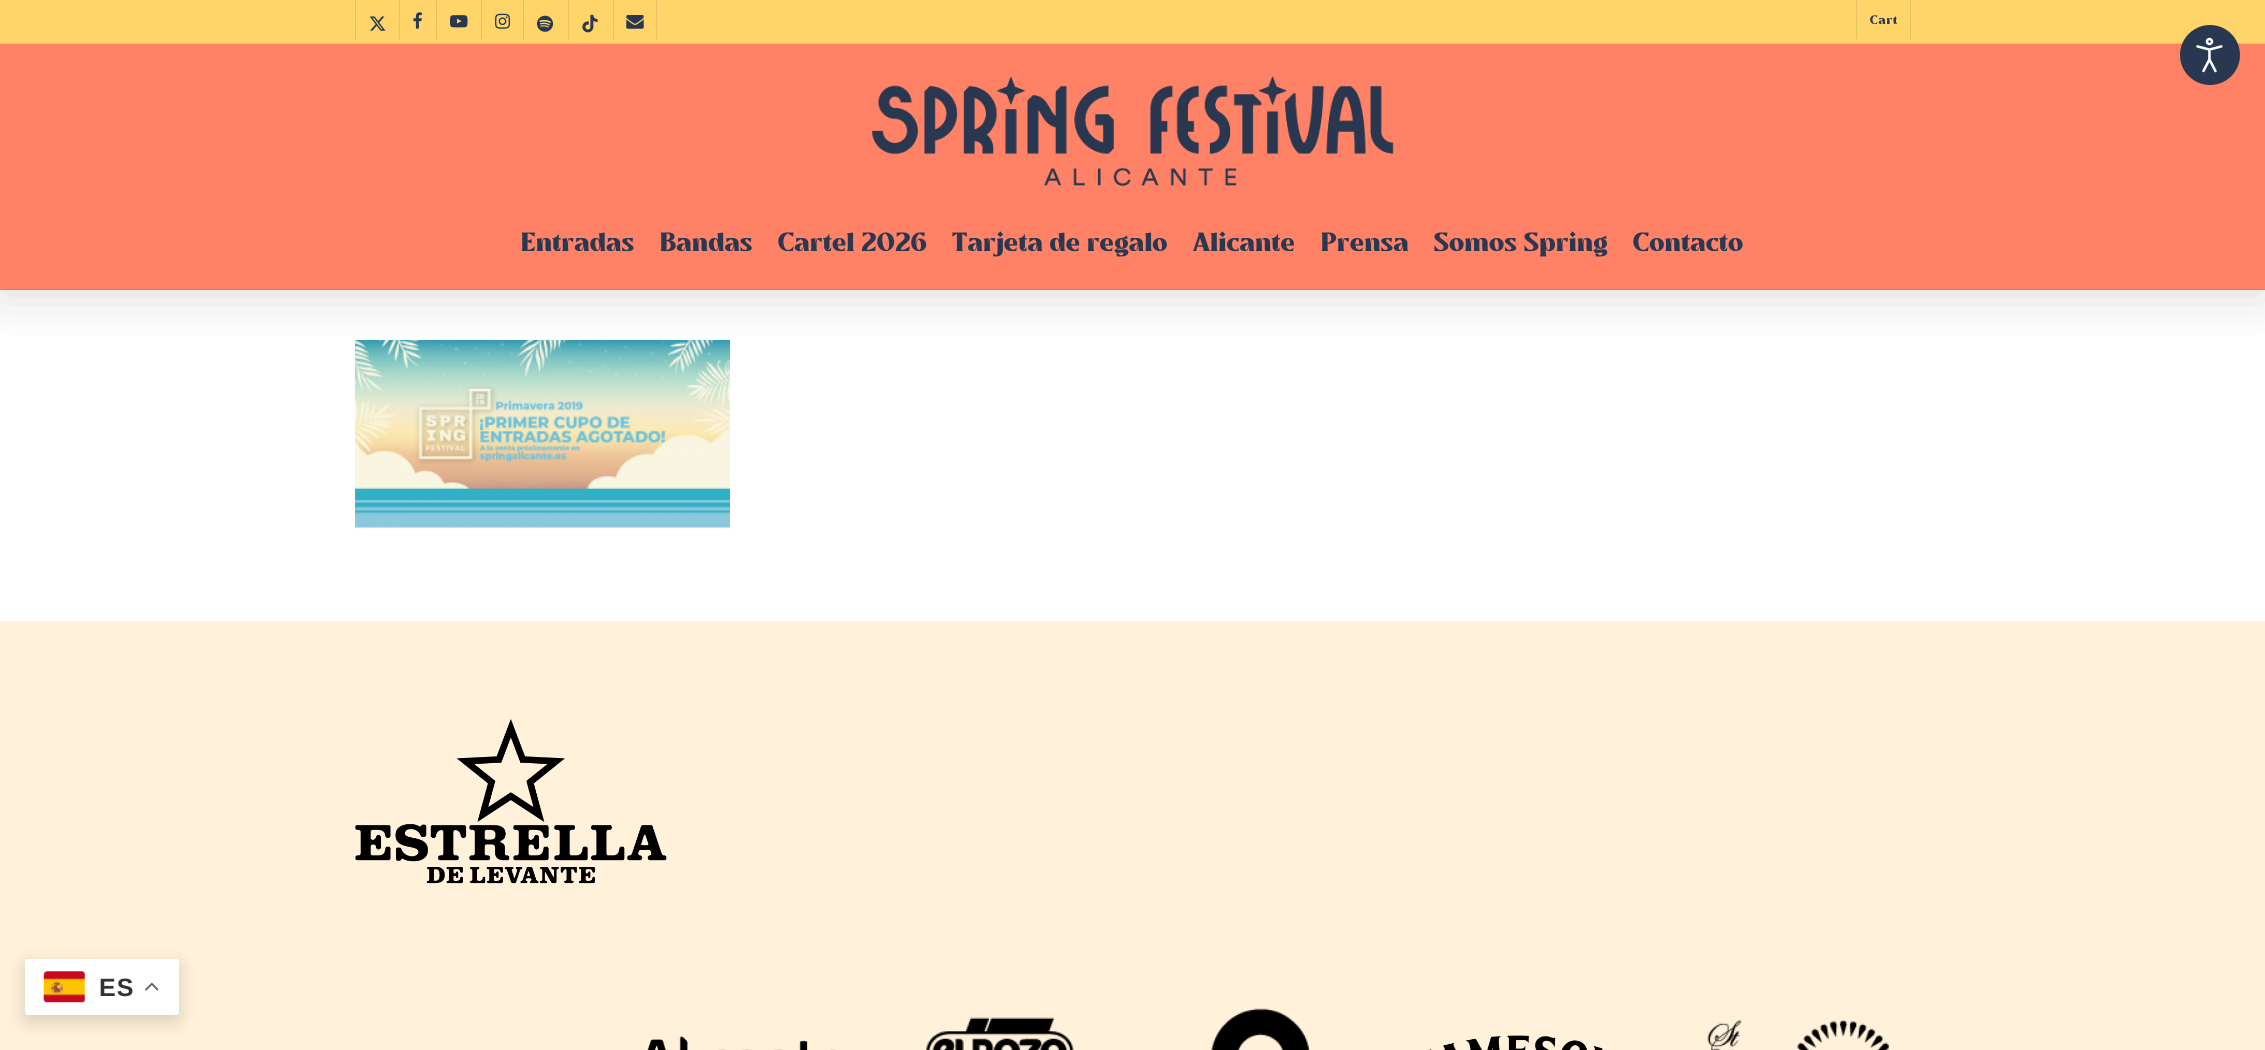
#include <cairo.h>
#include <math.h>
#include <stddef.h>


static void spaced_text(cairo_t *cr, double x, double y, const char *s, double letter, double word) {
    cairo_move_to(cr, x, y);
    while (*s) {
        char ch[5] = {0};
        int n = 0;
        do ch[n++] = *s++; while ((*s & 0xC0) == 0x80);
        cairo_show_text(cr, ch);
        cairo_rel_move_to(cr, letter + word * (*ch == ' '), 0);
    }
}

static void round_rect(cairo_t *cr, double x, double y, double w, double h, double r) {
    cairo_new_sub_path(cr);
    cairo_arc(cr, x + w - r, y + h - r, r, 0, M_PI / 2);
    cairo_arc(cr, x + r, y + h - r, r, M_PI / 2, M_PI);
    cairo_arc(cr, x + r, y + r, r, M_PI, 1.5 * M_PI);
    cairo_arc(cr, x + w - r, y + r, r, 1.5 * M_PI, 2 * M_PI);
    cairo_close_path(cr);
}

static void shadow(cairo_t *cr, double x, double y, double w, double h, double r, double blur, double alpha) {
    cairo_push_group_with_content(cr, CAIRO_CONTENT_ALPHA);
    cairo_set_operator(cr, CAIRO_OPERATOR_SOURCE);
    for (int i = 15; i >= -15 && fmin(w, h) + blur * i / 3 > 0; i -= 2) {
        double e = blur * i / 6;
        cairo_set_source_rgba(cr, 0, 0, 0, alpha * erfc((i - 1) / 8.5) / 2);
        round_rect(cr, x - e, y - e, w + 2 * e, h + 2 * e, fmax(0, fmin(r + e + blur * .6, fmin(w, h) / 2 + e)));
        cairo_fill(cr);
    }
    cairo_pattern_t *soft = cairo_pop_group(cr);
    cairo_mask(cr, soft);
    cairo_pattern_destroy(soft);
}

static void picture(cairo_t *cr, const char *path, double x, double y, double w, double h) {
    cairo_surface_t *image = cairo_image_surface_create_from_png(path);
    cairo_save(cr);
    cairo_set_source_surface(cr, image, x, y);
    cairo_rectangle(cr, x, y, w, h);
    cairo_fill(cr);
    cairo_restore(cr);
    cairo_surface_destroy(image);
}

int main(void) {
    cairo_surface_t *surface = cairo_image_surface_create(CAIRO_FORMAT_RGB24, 2265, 1050);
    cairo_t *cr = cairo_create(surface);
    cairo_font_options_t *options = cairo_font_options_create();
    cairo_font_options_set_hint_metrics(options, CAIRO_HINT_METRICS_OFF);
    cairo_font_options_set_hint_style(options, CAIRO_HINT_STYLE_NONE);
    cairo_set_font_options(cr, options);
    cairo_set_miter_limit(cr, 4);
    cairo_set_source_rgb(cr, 1, 1, 1);
    cairo_paint(cr);
    cairo_set_source_rgb(cr, 1, 0.51, 0.4);
    cairo_rectangle(cr, 0, 289, 2265, 1);
    cairo_fill(cr);
    picture(cr, "img10.png", 355, 340, 375, 188);
    cairo_set_source_rgb(cr, 0, 0, 0);
    shadow(cr, 0, 4, 2265, 289, 0, 28, 0.15);
    cairo_set_source_rgb(cr, 1, 0.51, 0.4);
    cairo_rectangle(cr, 0, 44, 2265, 245);
    cairo_fill(cr);
    cairo_set_source_rgb(cr, 1, 0.835, 0.412);
    cairo_rectangle(cr, 0, 0, 2265, 43);
    cairo_fill(cr);
    cairo_set_source_rgb(cr, 0.902, 0.753, 0.373);
    cairo_rectangle(cr, 0, 43, 2265, 1);
    cairo_fill(cr);
    cairo_rectangle(cr, 355, 0, 1, 40);
    cairo_fill(cr);
    picture(cr, "img1.png", 369, 16, 17, 15);
    cairo_rectangle(cr, 399, 0, 1, 40);
    cairo_fill(cr);
    picture(cr, "img2.png", 413, 12, 9, 17);
    cairo_rectangle(cr, 436, 0, 1, 40);
    cairo_fill(cr);
    picture(cr, "img3.png", 450, 15, 18, 13);
    cairo_rectangle(cr, 481, 0, 1, 40);
    cairo_fill(cr);
    picture(cr, "img4.png", 495, 13, 15, 16);
    cairo_rectangle(cr, 523, 0, 1, 40);
    cairo_fill(cr);
    picture(cr, "img5.png", 536, 15, 18, 17);
    cairo_rectangle(cr, 568, 0, 1, 40);
    cairo_fill(cr);
    picture(cr, "img6.png", 582, 14, 16, 19);
    cairo_rectangle(cr, 656, 0, 1, 40);
    cairo_fill(cr);
    cairo_rectangle(cr, 613, 0, 1, 40);
    cairo_fill(cr);
    picture(cr, "img7.png", 626, 15, 18, 14);
    cairo_rectangle(cr, 1910, 0, 1, 39);
    cairo_fill(cr);
    cairo_rectangle(cr, 1856, 0, 1, 39);
    cairo_fill(cr);
    cairo_select_font_face(cr, "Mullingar", CAIRO_FONT_SLANT_NORMAL, CAIRO_FONT_WEIGHT_NORMAL);
    cairo_set_font_size(cr, 14);
    cairo_set_source_rgb(cr, 0.165, 0.216, 0.314);
    spaced_text(cr, 1870, 24, "Cart", 1, 0);
    picture(cr, "img8.png", 871, 76, 523, 110);
    cairo_set_font_size(cr, 30);
    spaced_text(cr, 521, 251, "Entradas", 0.6, 0);
    spaced_text(cr, 660, 251, "Bandas", 0.6, 0);
    spaced_text(cr, 778, 251, "Cartel 2026", 0.6, 0);
    spaced_text(cr, 952, 251, "Tarjeta de regalo", 0.6, 0);
    spaced_text(cr, 1193, 251, "Alicante", 0.6, 0);
    spaced_text(cr, 1321, 251, "Prensa", 0.6, 0);
    spaced_text(cr, 1434, 251, "Somos Spring", 0.6, 0);
    spaced_text(cr, 1633, 251, "Contacto", 0.6, 0);
    cairo_new_path(cr);
    cairo_arc(cr, 2210, 55, 30, 0, 2 * M_PI);
    cairo_fill(cr);
    picture(cr, "img9.png", 2196, 37, 27, 36);
    cairo_set_source_rgb(cr, 1, 0.945, 0.855);
    cairo_rectangle(cr, 0, 621, 2265, 429);
    cairo_fill(cr);
    picture(cr, "img11.png", 355, 719, 312, 165);
    picture(cr, "img12.png", 647, 1036, 189, 14);
    picture(cr, "img13.png", 926, 1017, 148, 33);
    picture(cr, "img14.png", 1211, 1008, 99, 42);
    picture(cr, "img15.png", 1428, 1035, 175, 15);
    picture(cr, "img16.png", 1707, 1019, 182, 31);
    cairo_set_source_rgb(cr, 0, 0, 0);
    shadow(cr, 25, 965, 154, 56, 2.5, 9.5, 0.15);
    cairo_set_source_rgb(cr, 1, 1, 1);
    round_rect(cr, 25, 959, 154, 56, 2.5);
    cairo_fill(cr);
    picture(cr, "img17.png", 43, 971, 42, 32);
    cairo_select_font_face(cr, "Liberation Sans", CAIRO_FONT_SLANT_NORMAL, CAIRO_FONT_WEIGHT_BOLD);
    cairo_set_font_size(cr, 25);
    cairo_set_source_rgb(cr, 0.2, 0.2, 0.2);
    spaced_text(cr, 99, 996, "ES", 1, 0);
    picture(cr, "img18.png", 145, 982, 13, 9);
    cairo_surface_write_to_png(surface, "page.png");
    cairo_font_options_destroy(options);
    cairo_destroy(cr);
    cairo_surface_destroy(surface);
    return 0;
}
